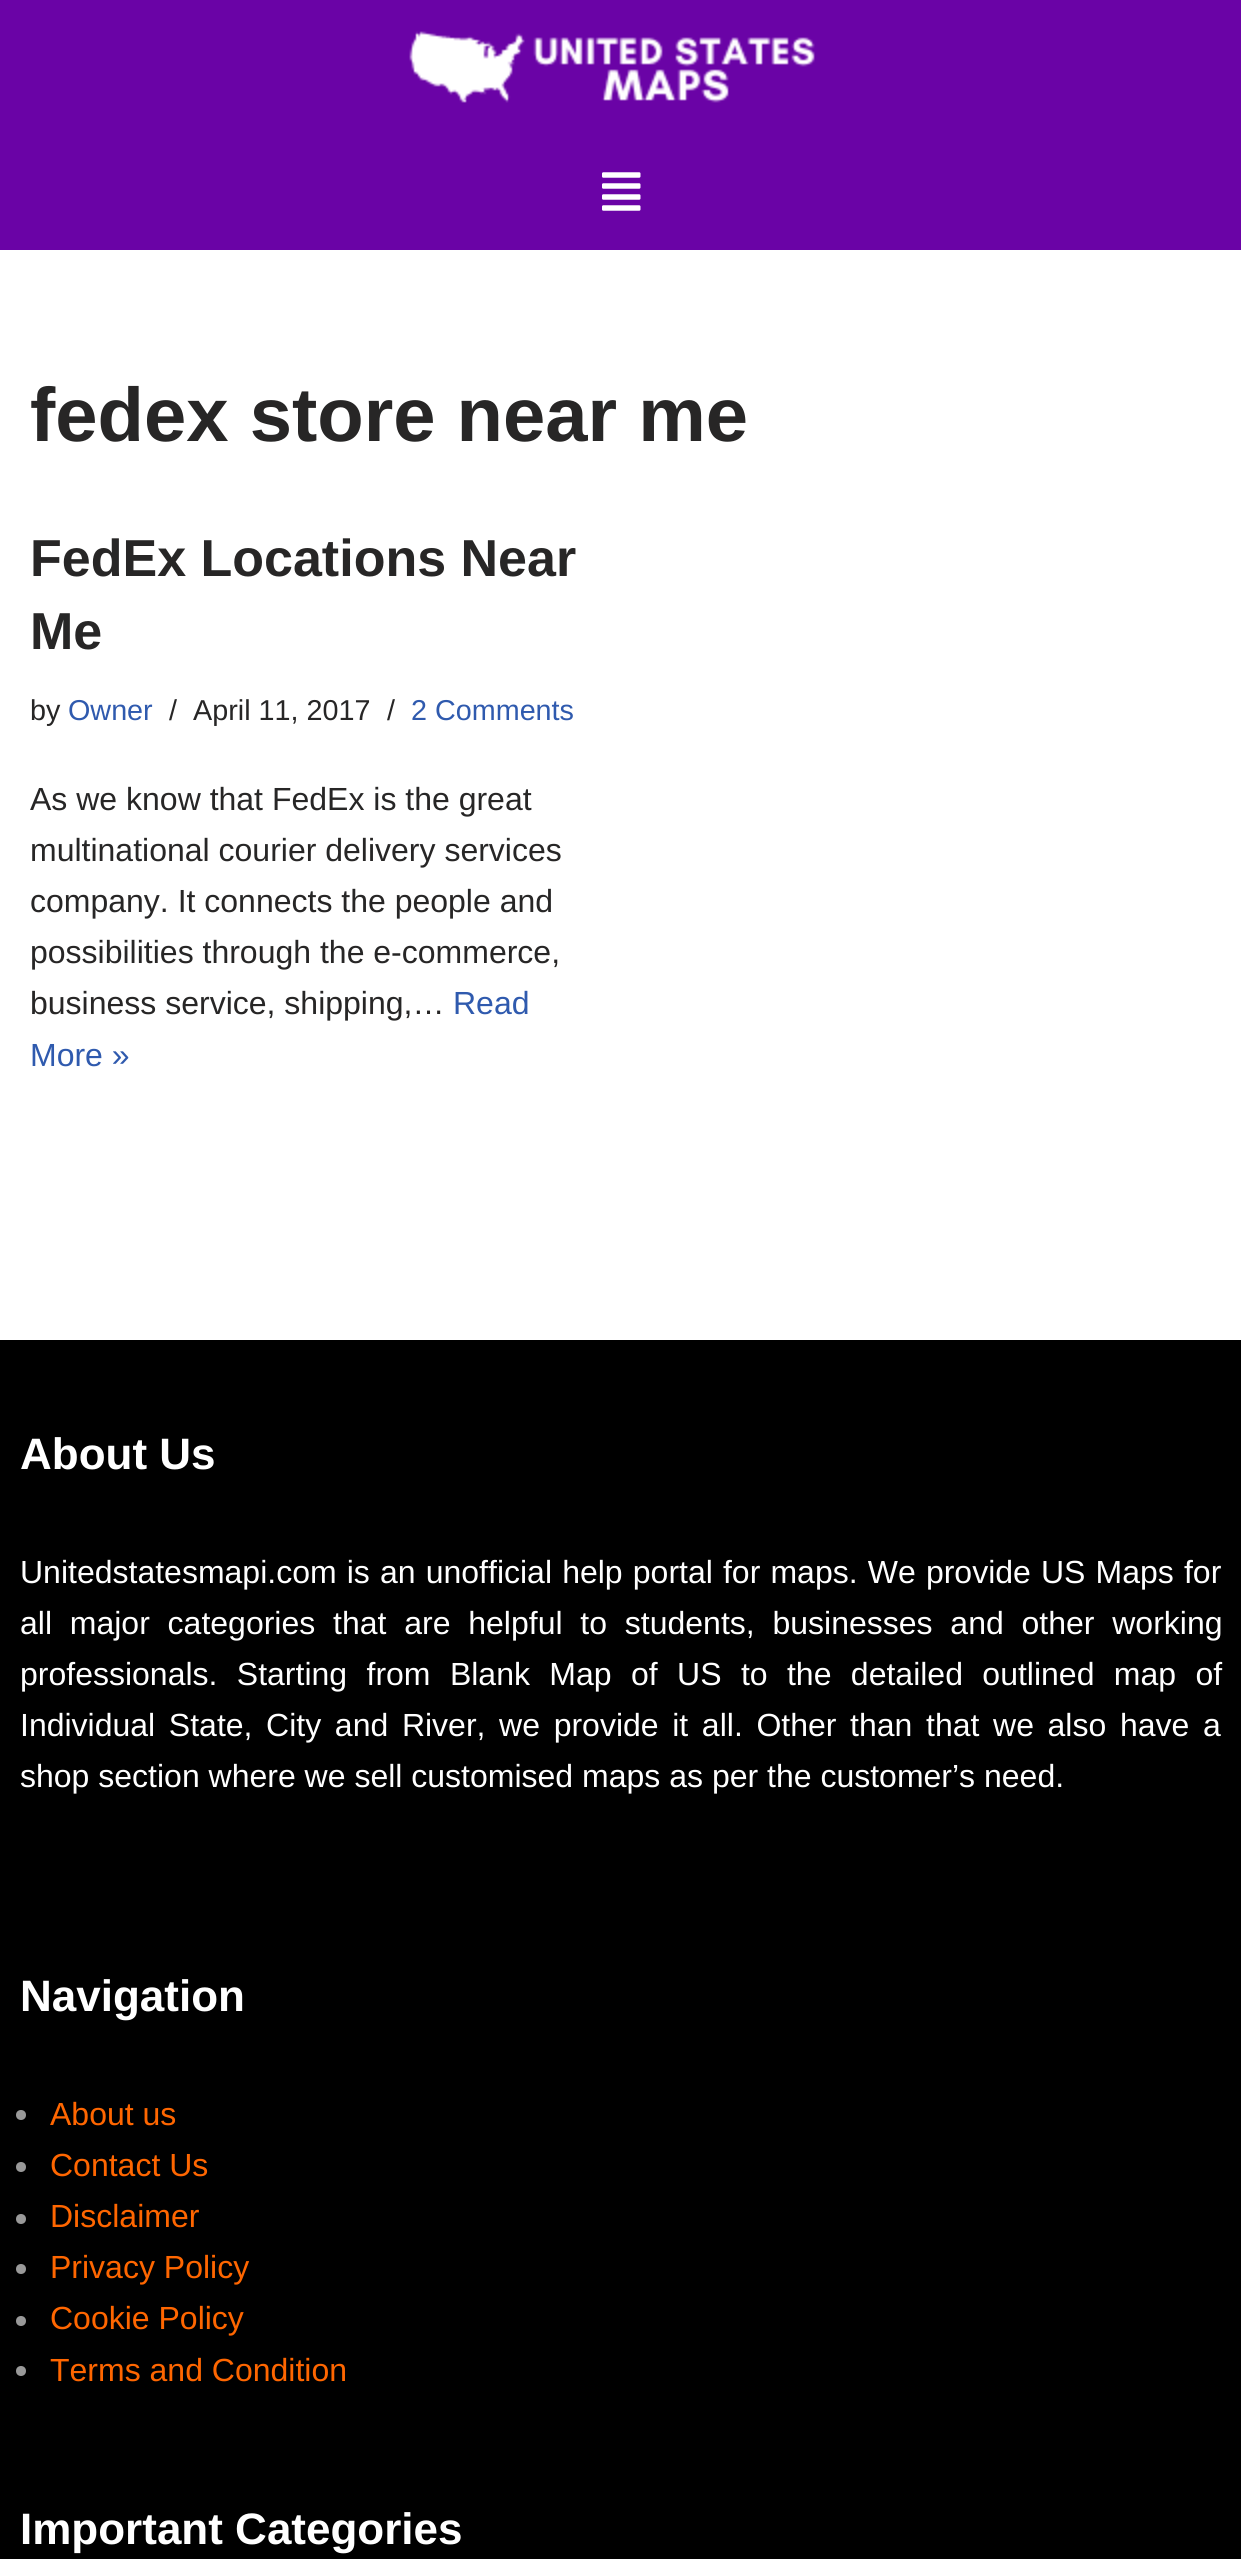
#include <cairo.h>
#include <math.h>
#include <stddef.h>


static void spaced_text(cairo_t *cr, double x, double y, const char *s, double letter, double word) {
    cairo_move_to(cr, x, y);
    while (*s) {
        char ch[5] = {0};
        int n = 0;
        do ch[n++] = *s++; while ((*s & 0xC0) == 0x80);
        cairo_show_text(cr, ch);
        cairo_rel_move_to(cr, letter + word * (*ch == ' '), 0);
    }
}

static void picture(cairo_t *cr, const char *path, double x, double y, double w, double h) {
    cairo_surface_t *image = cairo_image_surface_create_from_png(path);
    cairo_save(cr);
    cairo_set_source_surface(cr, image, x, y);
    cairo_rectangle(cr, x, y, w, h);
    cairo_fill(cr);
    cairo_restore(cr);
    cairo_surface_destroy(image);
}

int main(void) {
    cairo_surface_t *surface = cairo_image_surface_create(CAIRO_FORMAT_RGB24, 1241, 2559);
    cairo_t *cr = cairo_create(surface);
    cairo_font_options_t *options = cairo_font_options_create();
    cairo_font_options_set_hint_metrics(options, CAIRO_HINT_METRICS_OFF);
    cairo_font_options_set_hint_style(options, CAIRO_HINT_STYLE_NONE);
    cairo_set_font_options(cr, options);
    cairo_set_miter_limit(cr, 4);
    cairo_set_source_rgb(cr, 1, 1, 1);
    cairo_paint(cr);
    cairo_set_source_rgb(cr, 0.416, 0.012, 0.651);
    cairo_rectangle(cr, 0, 0, 1241, 250);
    cairo_fill(cr);
    picture(cr, "img1.png", 409, 31, 406, 72);
    picture(cr, "img2.png", 602, 172, 39, 39);
    cairo_select_font_face(cr, "Liberation Sans", CAIRO_FONT_SLANT_NORMAL, CAIRO_FONT_WEIGHT_BOLD);
    cairo_set_font_size(cr, 76);
    cairo_set_source_rgb(cr, 0.153, 0.149, 0.149);
    cairo_move_to(cr, 30, 441);
    cairo_show_text(cr, "fedex store near me");
    cairo_set_font_size(cr, 52);
    cairo_move_to(cr, 30, 576);
    cairo_show_text(cr, "FedEx Locations Near");
    cairo_move_to(cr, 30, 649);
    cairo_show_text(cr, "Me");
    cairo_select_font_face(cr, "Liberation Sans", CAIRO_FONT_SLANT_NORMAL, CAIRO_FONT_WEIGHT_NORMAL);
    cairo_set_font_size(cr, 28.75);
    cairo_move_to(cr, 30, 720);
    cairo_show_text(cr, "by");
    cairo_set_source_rgb(cr, 0.184, 0.353, 0.682);
    cairo_move_to(cr, 68, 720);
    cairo_show_text(cr, "Owner");
    cairo_set_source_rgb(cr, 0.153, 0.149, 0.149);
    cairo_move_to(cr, 169, 720);
    cairo_show_text(cr, "/");
    cairo_move_to(cr, 193, 720);
    cairo_show_text(cr, "April 11, 2017");
    cairo_move_to(cr, 387, 720);
    cairo_show_text(cr, "/");
    cairo_set_source_rgb(cr, 0.184, 0.353, 0.682);
    cairo_move_to(cr, 411, 720);
    cairo_show_text(cr, "2 Comments");
    cairo_set_font_size(cr, 32);
    cairo_set_source_rgb(cr, 0.153, 0.149, 0.149);
    cairo_move_to(cr, 30, 810);
    cairo_show_text(cr, "As we know that FedEx is the great");
    cairo_move_to(cr, 30, 861);
    cairo_show_text(cr, "multinational courier delivery services");
    cairo_move_to(cr, 30, 912);
    cairo_show_text(cr, "company. It connects the people and");
    cairo_move_to(cr, 30, 963);
    cairo_show_text(cr, "possibilities through the e-commerce,");
    cairo_move_to(cr, 30, 1014);
    cairo_show_text(cr, "business service, shipping,…");
    cairo_set_source_rgb(cr, 0.184, 0.353, 0.682);
    cairo_move_to(cr, 453, 1014);
    cairo_show_text(cr, "Read");
    cairo_move_to(cr, 30, 1066);
    cairo_show_text(cr, "More »");
    cairo_set_source_rgb(cr, 0, 0, 0);
    cairo_rectangle(cr, 0, 1340, 1241, 1219);
    cairo_fill(cr);
    cairo_select_font_face(cr, "Liberation Sans", CAIRO_FONT_SLANT_NORMAL, CAIRO_FONT_WEIGHT_BOLD);
    cairo_set_font_size(cr, 44);
    cairo_set_source_rgb(cr, 1, 1, 1);
    cairo_move_to(cr, 20, 1469);
    cairo_show_text(cr, "About Us");
    cairo_select_font_face(cr, "Liberation Sans", CAIRO_FONT_SLANT_NORMAL, CAIRO_FONT_WEIGHT_NORMAL);
    cairo_set_font_size(cr, 32);
    spaced_text(cr, 20, 1583, "Unitedstatesmapi.com is an unofficial help portal for maps. We provide US Maps for", 0, 1.25);
    spaced_text(cr, 20, 1634, "all major categories that are helpful to students, businesses and other working", 0, 8.9);
    spaced_text(cr, 20, 1685, "professionals. Starting from Blank Map of US to the detailed outlined map of", 0, 10.5);
    spaced_text(cr, 20, 1736, "Individual State, City and River, we provide it all. Other than that we also have a", 0, 4.75);
    cairo_move_to(cr, 20, 1787);
    cairo_show_text(cr, "shop section where we sell customised maps as per the customer’s need.");
    cairo_select_font_face(cr, "Liberation Sans", CAIRO_FONT_SLANT_NORMAL, CAIRO_FONT_WEIGHT_BOLD);
    cairo_set_font_size(cr, 44);
    cairo_move_to(cr, 20, 2011);
    cairo_show_text(cr, "Navigation");
    cairo_set_source_rgb(cr, 0.6, 0.6, 0.6);
    cairo_new_path(cr);
    cairo_arc(cr, 21, 2115, 5, 0, 2 * M_PI);
    cairo_fill(cr);
    cairo_select_font_face(cr, "Liberation Sans", CAIRO_FONT_SLANT_NORMAL, CAIRO_FONT_WEIGHT_NORMAL);
    cairo_set_font_size(cr, 32);
    cairo_set_source_rgb(cr, 1, 0.4, 0);
    cairo_move_to(cr, 50, 2125);
    cairo_show_text(cr, "About us");
    cairo_set_source_rgb(cr, 0.6, 0.6, 0.6);
    cairo_new_path(cr);
    cairo_arc(cr, 21, 2167, 5, 0, 2 * M_PI);
    cairo_fill(cr);
    cairo_set_source_rgb(cr, 1, 0.4, 0);
    cairo_move_to(cr, 50, 2176);
    cairo_show_text(cr, "Contact Us");
    cairo_set_source_rgb(cr, 0.6, 0.6, 0.6);
    cairo_new_path(cr);
    cairo_arc(cr, 21, 2219, 5, 0, 2 * M_PI);
    cairo_fill(cr);
    cairo_set_source_rgb(cr, 1, 0.4, 0);
    cairo_move_to(cr, 50, 2227);
    cairo_show_text(cr, "Disclaimer");
    cairo_set_source_rgb(cr, 0.6, 0.6, 0.6);
    cairo_new_path(cr);
    cairo_arc(cr, 21, 2269, 5, 0, 2 * M_PI);
    cairo_fill(cr);
    cairo_set_source_rgb(cr, 1, 0.4, 0);
    cairo_move_to(cr, 50, 2278);
    cairo_show_text(cr, "Privacy Policy");
    cairo_set_source_rgb(cr, 0.6, 0.6, 0.6);
    cairo_new_path(cr);
    cairo_arc(cr, 21, 2321, 5, 0, 2 * M_PI);
    cairo_fill(cr);
    cairo_set_source_rgb(cr, 1, 0.4, 0);
    cairo_move_to(cr, 50, 2329);
    cairo_show_text(cr, "Cookie Policy");
    cairo_set_source_rgb(cr, 0.6, 0.6, 0.6);
    cairo_new_path(cr);
    cairo_arc(cr, 21, 2371, 5, 0, 2 * M_PI);
    cairo_fill(cr);
    cairo_set_source_rgb(cr, 1, 0.4, 0);
    cairo_move_to(cr, 50, 2381);
    cairo_show_text(cr, "Terms and Condition");
    cairo_select_font_face(cr, "Liberation Sans", CAIRO_FONT_SLANT_NORMAL, CAIRO_FONT_WEIGHT_BOLD);
    cairo_set_font_size(cr, 44);
    cairo_set_source_rgb(cr, 1, 1, 1);
    cairo_move_to(cr, 20, 2544);
    cairo_show_text(cr, "Important Categories");
    cairo_surface_write_to_png(surface, "page.png");
    cairo_font_options_destroy(options);
    cairo_destroy(cr);
    cairo_surface_destroy(surface);
    return 0;
}
